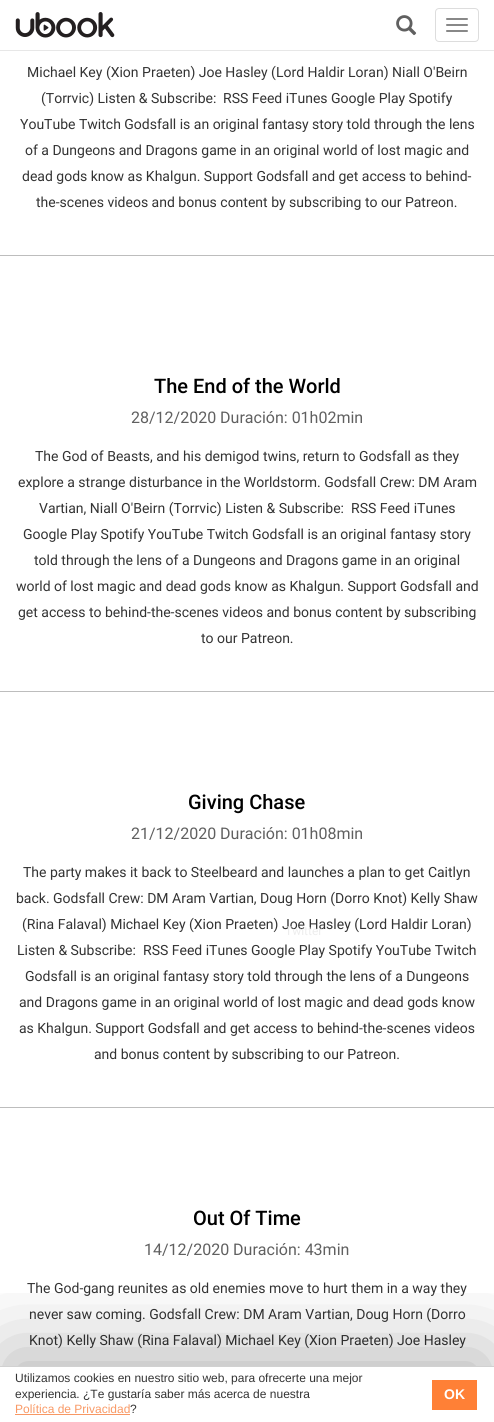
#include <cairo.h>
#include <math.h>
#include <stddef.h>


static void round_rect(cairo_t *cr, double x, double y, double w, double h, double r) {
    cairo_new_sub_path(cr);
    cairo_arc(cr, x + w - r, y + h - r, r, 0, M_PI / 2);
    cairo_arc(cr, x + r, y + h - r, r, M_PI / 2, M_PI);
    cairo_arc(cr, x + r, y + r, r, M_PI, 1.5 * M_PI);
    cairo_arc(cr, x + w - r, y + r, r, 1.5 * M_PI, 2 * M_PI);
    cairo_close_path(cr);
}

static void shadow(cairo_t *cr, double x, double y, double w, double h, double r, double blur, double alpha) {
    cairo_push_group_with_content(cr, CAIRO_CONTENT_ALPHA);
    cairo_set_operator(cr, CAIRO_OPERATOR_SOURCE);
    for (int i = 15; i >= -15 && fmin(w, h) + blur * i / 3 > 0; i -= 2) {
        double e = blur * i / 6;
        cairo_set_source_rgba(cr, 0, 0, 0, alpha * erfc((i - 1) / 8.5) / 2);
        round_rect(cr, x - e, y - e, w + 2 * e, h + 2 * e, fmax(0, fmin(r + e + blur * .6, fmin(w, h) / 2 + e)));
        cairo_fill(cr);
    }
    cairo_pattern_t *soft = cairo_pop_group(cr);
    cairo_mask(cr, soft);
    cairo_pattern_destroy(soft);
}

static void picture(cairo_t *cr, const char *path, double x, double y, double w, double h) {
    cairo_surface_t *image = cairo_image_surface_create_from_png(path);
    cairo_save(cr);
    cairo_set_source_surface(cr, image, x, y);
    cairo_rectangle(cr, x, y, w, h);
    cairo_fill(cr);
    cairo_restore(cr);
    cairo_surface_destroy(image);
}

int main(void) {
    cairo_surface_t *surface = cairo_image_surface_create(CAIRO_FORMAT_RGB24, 494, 1422);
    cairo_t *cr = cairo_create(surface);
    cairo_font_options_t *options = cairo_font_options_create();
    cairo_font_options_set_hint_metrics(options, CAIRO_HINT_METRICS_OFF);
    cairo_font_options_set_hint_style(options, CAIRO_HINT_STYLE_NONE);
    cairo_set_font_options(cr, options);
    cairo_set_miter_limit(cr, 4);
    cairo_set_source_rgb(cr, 1, 1, 1);
    cairo_paint(cr);
    cairo_set_source_rgb(cr, 0.906, 0.906, 0.906);
    cairo_rectangle(cr, 0, 50, 494, 1);
    cairo_fill(cr);
    picture(cr, "img1.png", 15, 12, 100, 26);
    picture(cr, "img2.png", 396, 15, 21, 21);
    round_rect(cr, 435.5, 8.5, 43, 33, 3.5);
    cairo_set_source_rgb(cr, 0.867, 0.867, 0.867);
    cairo_set_line_width(cr, 1);
    cairo_stroke(cr);
    cairo_set_source_rgb(cr, 0.533, 0.533, 0.533);
    round_rect(cr, 446, 18, 22, 2, 1);
    cairo_fill(cr);
    round_rect(cr, 446, 24, 22, 2, 1);
    cairo_fill(cr);
    round_rect(cr, 446, 30, 22, 2, 1);
    cairo_fill(cr);
    cairo_set_source_rgb(cr, 0.741, 0.741, 0.741);
    cairo_rectangle(cr, 0, 255, 494, 1);
    cairo_fill(cr);
    cairo_select_font_face(cr, "Roboto", CAIRO_FONT_SLANT_NORMAL, CAIRO_FONT_WEIGHT_NORMAL);
    cairo_set_font_size(cr, 14);
    cairo_set_source_rgb(cr, 0.2, 0.2, 0.2);
    cairo_move_to(cr, 27, 77);
    cairo_show_text(cr, "Michael Key (Xion Praeten) Joe Hasley (Lord Haldir Loran) Niall O'Beirn");
    cairo_move_to(cr, 41, 103);
    cairo_show_text(cr, "(Torrvic) Listen & Subscribe:");
    cairo_move_to(cr, 223, 103);
    cairo_show_text(cr, "RSS Feed iTunes Google Play Spotify");
    cairo_move_to(cr, 20, 129);
    cairo_show_text(cr, "YouTube Twitch Godsfall is an original fantasy story told through the lens");
    cairo_move_to(cr, 25, 155);
    cairo_show_text(cr, "of a Dungeons and Dragons game in an original world of lost magic and");
    cairo_move_to(cr, 22, 181);
    cairo_show_text(cr, "dead gods know as Khalgun. Support Godsfall and get access to behind-");
    cairo_move_to(cr, 36, 207);
    cairo_show_text(cr, "the-scenes videos and bonus content by subscribing to our Patreon.");
    cairo_set_source_rgb(cr, 0.741, 0.741, 0.741);
    cairo_rectangle(cr, 0, 691, 494, 1);
    cairo_fill(cr);
    cairo_select_font_face(cr, "Roboto Medium", CAIRO_FONT_SLANT_NORMAL, CAIRO_FONT_WEIGHT_NORMAL);
    cairo_set_font_size(cr, 20);
    cairo_set_source_rgb(cr, 0, 0, 0);
    cairo_move_to(cr, 154, 393);
    cairo_show_text(cr, "The End of the World");
    cairo_select_font_face(cr, "Roboto", CAIRO_FONT_SLANT_NORMAL, CAIRO_FONT_WEIGHT_NORMAL);
    cairo_set_font_size(cr, 16);
    cairo_set_source_rgb(cr, 0.376, 0.376, 0.376);
    cairo_move_to(cr, 131, 423);
    cairo_show_text(cr, "28/12/2020 Duración: 01h02min");
    cairo_set_font_size(cr, 14);
    cairo_set_source_rgb(cr, 0.2, 0.2, 0.2);
    cairo_move_to(cr, 35, 461);
    cairo_show_text(cr, "The God of Beasts, and his demigod twins, return to Godsfall as they");
    cairo_move_to(cr, 18, 487);
    cairo_show_text(cr, "explore a strange disturbance in the Worldstorm. Godsfall Crew: DM Aram");
    cairo_move_to(cr, 39, 513);
    cairo_show_text(cr, "Vartian, Niall O'Beirn (Torrvic) Listen & Subscribe:");
    cairo_move_to(cr, 351, 513);
    cairo_show_text(cr, "RSS Feed iTunes");
    cairo_move_to(cr, 23, 539);
    cairo_show_text(cr, "Google Play Spotify YouTube Twitch Godsfall is an original fantasy story");
    cairo_move_to(cr, 34, 565);
    cairo_show_text(cr, "told through the lens of a Dungeons and Dragons game in an original");
    cairo_move_to(cr, 16, 591);
    cairo_show_text(cr, "world of lost magic and dead gods know as Khalgun. Support Godsfall and");
    cairo_move_to(cr, 18, 617);
    cairo_show_text(cr, "get access to behind-the-scenes videos and bonus content by subscribing");
    cairo_move_to(cr, 201, 643);
    cairo_show_text(cr, "to our Patreon.");
    cairo_set_source_rgb(cr, 0.741, 0.741, 0.741);
    cairo_rectangle(cr, 0, 1107, 494, 1);
    cairo_fill(cr);
    cairo_select_font_face(cr, "Roboto Medium", CAIRO_FONT_SLANT_NORMAL, CAIRO_FONT_WEIGHT_NORMAL);
    cairo_set_font_size(cr, 20);
    cairo_set_source_rgb(cr, 0, 0, 0);
    cairo_move_to(cr, 188, 809);
    cairo_show_text(cr, "Giving Chase");
    cairo_select_font_face(cr, "Roboto", CAIRO_FONT_SLANT_NORMAL, CAIRO_FONT_WEIGHT_NORMAL);
    cairo_set_font_size(cr, 16);
    cairo_set_source_rgb(cr, 0.376, 0.376, 0.376);
    cairo_move_to(cr, 131, 839);
    cairo_show_text(cr, "21/12/2020 Duración: 01h08min");
    cairo_set_font_size(cr, 14);
    cairo_set_source_rgb(cr, 0.2, 0.2, 0.2);
    cairo_move_to(cr, 23, 877);
    cairo_show_text(cr, "The party makes it back to Steelbeard and launches a plan to get Caitlyn");
    cairo_move_to(cr, 16, 903);
    cairo_show_text(cr, "back. Godsfall Crew: DM Aram Vartian, Doug Horn (Dorro Knot) Kelly Shaw");
    cairo_move_to(cr, 22, 929);
    cairo_show_text(cr, "(Rina Falaval) Michael Key (Xion Praeten) Joe Hasley (Lord Haldir Loran)");
    cairo_move_to(cr, 17, 955);
    cairo_show_text(cr, "Listen & Subscribe:");
    cairo_move_to(cr, 143, 955);
    cairo_show_text(cr, "RSS Feed iTunes Google Play Spotify YouTube Twitch");
    cairo_move_to(cr, 25, 981);
    cairo_show_text(cr, "Godsfall is an original fantasy story told through the lens of a Dungeons");
    cairo_move_to(cr, 19, 1007);
    cairo_show_text(cr, "and Dragons game in an original world of lost magic and dead gods know");
    cairo_move_to(cr, 19, 1033);
    cairo_show_text(cr, "as Khalgun. Support Godsfall and get access to behind-the-scenes videos");
    cairo_move_to(cr, 94, 1059);
    cairo_show_text(cr, "and bonus content by subscribing to our Patreon.");
    cairo_select_font_face(cr, "Roboto Medium", CAIRO_FONT_SLANT_NORMAL, CAIRO_FONT_WEIGHT_NORMAL);
    cairo_set_font_size(cr, 20);
    cairo_set_source_rgb(cr, 0, 0, 0);
    cairo_move_to(cr, 193, 1225);
    cairo_show_text(cr, "Out Of Time");
    cairo_select_font_face(cr, "Roboto", CAIRO_FONT_SLANT_NORMAL, CAIRO_FONT_WEIGHT_NORMAL);
    cairo_set_font_size(cr, 16);
    cairo_set_source_rgb(cr, 0.376, 0.376, 0.376);
    cairo_move_to(cr, 144, 1255);
    cairo_show_text(cr, "14/12/2020 Duración: 43min");
    cairo_set_font_size(cr, 14);
    cairo_set_source_rgb(cr, 0.2, 0.2, 0.2);
    cairo_move_to(cr, 27, 1293);
    cairo_show_text(cr, "The God-gang reunites as old enemies move to hurt them in a way they");
    cairo_move_to(cr, 29, 1319);
    cairo_show_text(cr, "never saw coming. Godsfall Crew: DM Aram Vartian, Doug Horn (Dorro");
    cairo_move_to(cr, 29, 1345);
    cairo_show_text(cr, "Knot) Kelly Shaw (Rina Falaval) Michael Key (Xion Praeten) Joe Hasley");
    cairo_save(cr);
    cairo_rectangle(cr, 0, 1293, 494, 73);
    cairo_clip(cr);
    cairo_set_source_rgb(cr, 0, 0, 0);
    shadow(cr, 8, 1354, 478, 40, 0, 42.5, 0.3);
    cairo_restore(cr);
    cairo_set_source_rgba(cr, 0, 0, 0, 0.18);
    cairo_rectangle(cr, 0, 1366, 494, 1);
    cairo_fill(cr);
    cairo_select_font_face(cr, "Liberation Sans", CAIRO_FONT_SLANT_NORMAL, CAIRO_FONT_WEIGHT_NORMAL);
    cairo_set_font_size(cr, 12);
    cairo_set_source_rgb(cr, 0.2, 0.2, 0.2);
    cairo_move_to(cr, 15, 1382);
    cairo_show_text(cr, "Utilizamos cookies en nuestro sitio web, para ofrecerte una mejor");
    cairo_move_to(cr, 15, 1398);
    cairo_show_text(cr, "experiencia. ¿Te gustaría saber más acerca de nuestra");
    cairo_set_source_rgb(cr, 0.973, 0.6, 0.396);
    cairo_move_to(cr, 15, 1413);
    cairo_show_text(cr, "Política de Privacidad");
    cairo_set_source_rgba(cr, 0.965, 0.498, 0.243, 0.8);
    cairo_rectangle(cr, 15, 1414, 115, 1);
    cairo_fill(cr);
    cairo_set_source_rgb(cr, 0.2, 0.2, 0.2);
    cairo_move_to(cr, 130, 1413);
    cairo_show_text(cr, "?");
    cairo_set_source_rgb(cr, 1, 0.502, 0.212);
    cairo_rectangle(cr, 432, 1380, 45, 30);
    cairo_fill(cr);
    cairo_select_font_face(cr, "Liberation Sans", CAIRO_FONT_SLANT_NORMAL, CAIRO_FONT_WEIGHT_BOLD);
    cairo_set_font_size(cr, 14);
    cairo_set_source_rgb(cr, 1, 1, 1);
    cairo_move_to(cr, 444, 1399);
    cairo_show_text(cr, "OK");
    cairo_select_font_face(cr, "Roboto", CAIRO_FONT_SLANT_NORMAL, CAIRO_FONT_WEIGHT_NORMAL);
    cairo_set_font_size(cr, 12);
    cairo_set_source_rgb(cr, 0.929, 0.929, 0.929);
    cairo_move_to(cr, 285, 935);
    cairo_show_text(cr, "Twitter");
    cairo_surface_write_to_png(surface, "page.png");
    cairo_font_options_destroy(options);
    cairo_destroy(cr);
    cairo_surface_destroy(surface);
    return 0;
}
